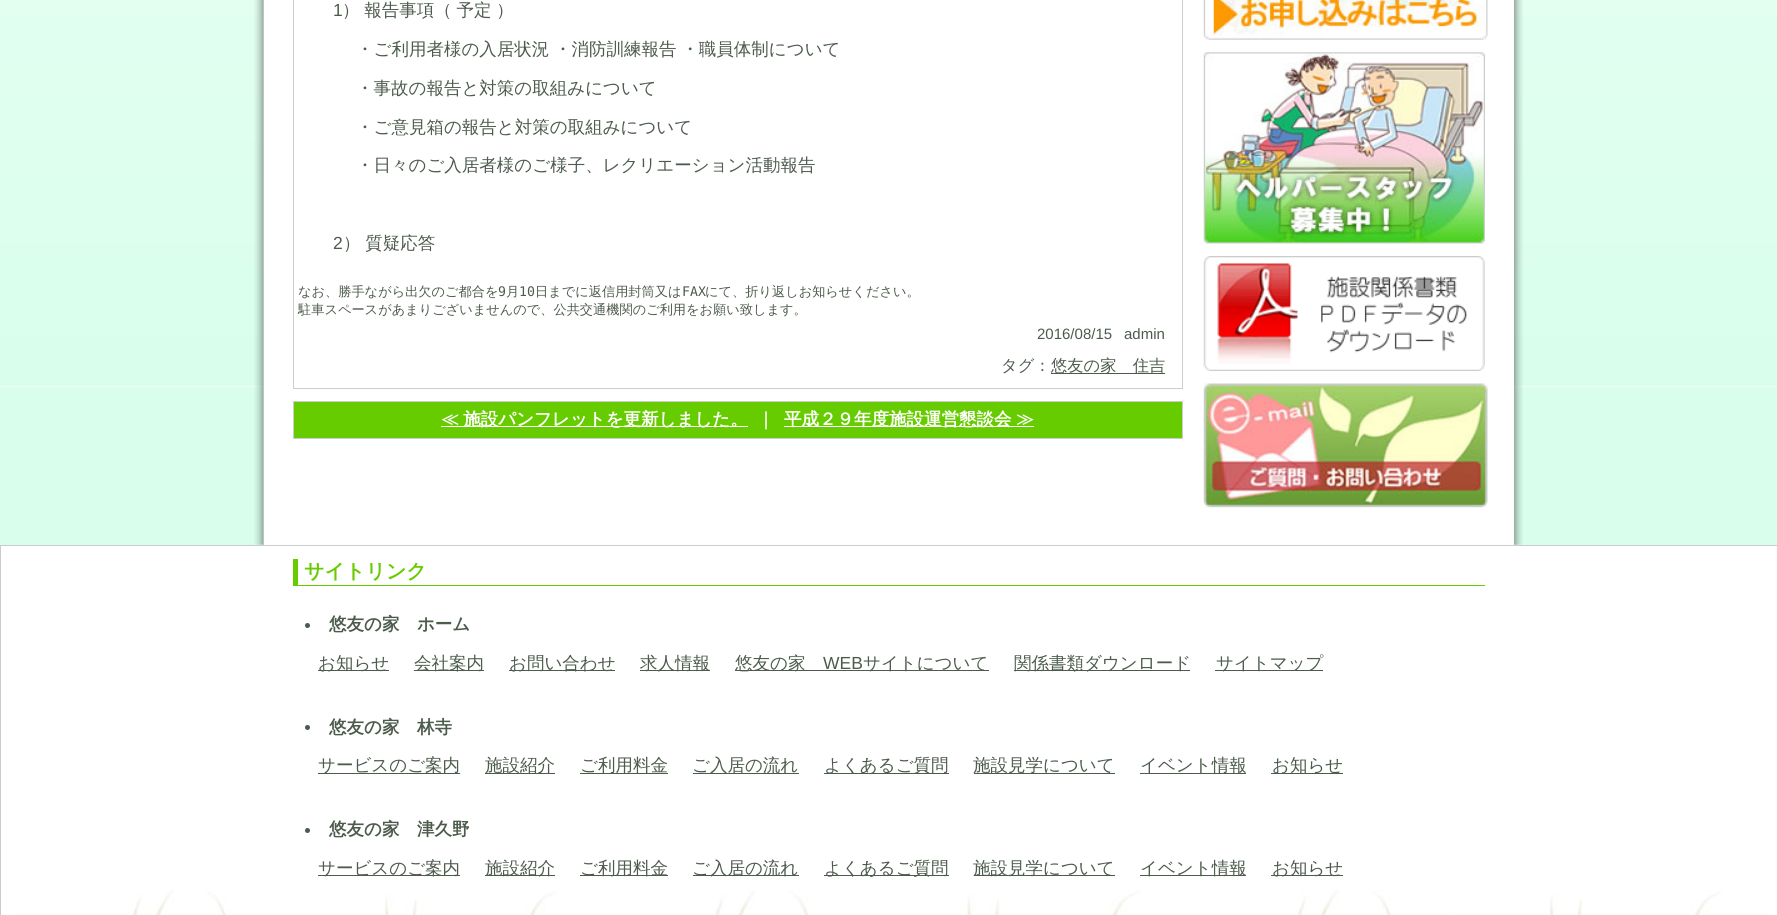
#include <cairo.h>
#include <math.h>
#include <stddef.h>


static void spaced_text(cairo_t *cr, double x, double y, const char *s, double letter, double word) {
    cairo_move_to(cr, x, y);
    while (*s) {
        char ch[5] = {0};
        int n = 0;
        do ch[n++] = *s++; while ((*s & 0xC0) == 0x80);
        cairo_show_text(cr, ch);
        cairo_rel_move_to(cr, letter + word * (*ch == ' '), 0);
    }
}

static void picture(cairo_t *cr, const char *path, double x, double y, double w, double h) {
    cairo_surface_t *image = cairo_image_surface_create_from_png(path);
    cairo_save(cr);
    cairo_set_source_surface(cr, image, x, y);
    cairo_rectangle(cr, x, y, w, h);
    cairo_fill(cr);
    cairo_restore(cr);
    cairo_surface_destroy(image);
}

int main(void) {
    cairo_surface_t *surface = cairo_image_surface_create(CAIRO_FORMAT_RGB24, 1777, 915);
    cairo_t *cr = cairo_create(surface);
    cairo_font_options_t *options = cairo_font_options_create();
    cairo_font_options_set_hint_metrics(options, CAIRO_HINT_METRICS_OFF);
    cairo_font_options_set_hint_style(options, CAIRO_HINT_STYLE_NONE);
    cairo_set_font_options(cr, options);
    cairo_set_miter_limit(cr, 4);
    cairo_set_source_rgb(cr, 0.851, 1, 0.925);
    cairo_paint(cr);
    picture(cr, "img1.png", 0, 0, 1777, 388);
    picture(cr, "img2.png", 254, 0, 1269, 545);
    cairo_set_source_rgb(cr, 1, 1, 1);
    cairo_rectangle(cr, 264, 0, 1250, 545);
    cairo_fill(cr);
    cairo_rectangle(cr, 293.5, -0.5, 889, 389);
    cairo_set_source_rgb(cr, 0.8, 0.8, 0.8);
    cairo_set_line_width(cr, 1);
    cairo_stroke(cr);
    cairo_select_font_face(cr, "Liberation Sans", CAIRO_FONT_SLANT_NORMAL, CAIRO_FONT_WEIGHT_NORMAL);
    cairo_set_font_size(cr, 17.5);
    cairo_set_source_rgb(cr, 0.302, 0.357, 0.302);
    cairo_move_to(cr, 333, 16);
    cairo_show_text(cr, "1");
    cairo_select_font_face(cr, "WenQuanYi Zen Hei Medium", CAIRO_FONT_SLANT_NORMAL, CAIRO_FONT_WEIGHT_NORMAL);
    spaced_text(cr, 342, 16, "） 報告事項（ 予定 ）", 0, -0.5);
    spaced_text(cr, 356, 55, "・ご利用者様の入居状況 ・消防訓練報告 ・職員体制について", 0, -0.5);
    cairo_move_to(cr, 356, 94);
    cairo_show_text(cr, "・事故の報告と対策の取組みについて");
    cairo_move_to(cr, 356, 133);
    cairo_show_text(cr, "・ご意見箱の報告と対策の取組みについて");
    cairo_move_to(cr, 356, 171);
    cairo_show_text(cr, "・日々のご入居者様のご様子、レクリエーション活動報告");
    cairo_select_font_face(cr, "Liberation Sans", CAIRO_FONT_SLANT_NORMAL, CAIRO_FONT_WEIGHT_NORMAL);
    cairo_move_to(cr, 333, 249);
    cairo_show_text(cr, "2");
    cairo_select_font_face(cr, "WenQuanYi Zen Hei Medium", CAIRO_FONT_SLANT_NORMAL, CAIRO_FONT_WEIGHT_NORMAL);
    spaced_text(cr, 343, 249, "） 質疑応答", 0, -0.5);
    cairo_set_font_size(cr, 13.2);
    cairo_move_to(cr, 298, 296);
    cairo_show_text(cr, "なお、勝手ながら出欠のご都合を");
    cairo_select_font_face(cr, "DejaVu Sans Mono", CAIRO_FONT_SLANT_NORMAL, CAIRO_FONT_WEIGHT_NORMAL);
    cairo_move_to(cr, 498, 296);
    cairo_show_text(cr, "9");
    cairo_select_font_face(cr, "WenQuanYi Zen Hei Medium", CAIRO_FONT_SLANT_NORMAL, CAIRO_FONT_WEIGHT_NORMAL);
    cairo_move_to(cr, 506, 296);
    cairo_show_text(cr, "月");
    cairo_select_font_face(cr, "DejaVu Sans Mono", CAIRO_FONT_SLANT_NORMAL, CAIRO_FONT_WEIGHT_NORMAL);
    cairo_move_to(cr, 519, 296);
    cairo_show_text(cr, "10");
    cairo_select_font_face(cr, "WenQuanYi Zen Hei Medium", CAIRO_FONT_SLANT_NORMAL, CAIRO_FONT_WEIGHT_NORMAL);
    cairo_move_to(cr, 535, 296);
    cairo_show_text(cr, "日までに返信用封筒又は");
    cairo_select_font_face(cr, "DejaVu Sans Mono", CAIRO_FONT_SLANT_NORMAL, CAIRO_FONT_WEIGHT_NORMAL);
    cairo_move_to(cr, 682, 296);
    cairo_show_text(cr, "FAX");
    cairo_select_font_face(cr, "WenQuanYi Zen Hei Medium", CAIRO_FONT_SLANT_NORMAL, CAIRO_FONT_WEIGHT_NORMAL);
    cairo_move_to(cr, 705, 296);
    cairo_show_text(cr, "にて、折り返しお知らせください。");
    cairo_move_to(cr, 298, 314);
    cairo_show_text(cr, "駐車スペースがあまりございませんので、公共交通機関のご利用をお願い致します。");
    cairo_select_font_face(cr, "Liberation Sans", CAIRO_FONT_SLANT_NORMAL, CAIRO_FONT_WEIGHT_NORMAL);
    cairo_set_font_size(cr, 15);
    cairo_move_to(cr, 1037, 339);
    cairo_show_text(cr, "2016/08/15");
    cairo_move_to(cr, 1124, 339);
    cairo_show_text(cr, "admin");
    cairo_select_font_face(cr, "WenQuanYi Zen Hei Medium", CAIRO_FONT_SLANT_NORMAL, CAIRO_FONT_WEIGHT_NORMAL);
    cairo_set_font_size(cr, 16.25);
    cairo_move_to(cr, 1001, 371);
    cairo_show_text(cr, "タグ：");
    cairo_rectangle(cr, 1051, 373, 114, 1);
    cairo_fill(cr);
    cairo_move_to(cr, 1051, 371);
    cairo_show_text(cr, "悠友の家　住吉");
    cairo_set_source_rgb(cr, 0.4, 0.8, 0);
    cairo_rectangle(cr, 293.5, 401.5, 889, 37);
    cairo_fill_preserve(cr);
    cairo_set_source_rgb(cr, 0.8, 0.8, 0.8);
    cairo_stroke(cr);
    cairo_set_source_rgb(cr, 1, 1, 1);
    cairo_rectangle(cr, 441, 426, 307, 1);
    cairo_fill(cr);
    cairo_select_font_face(cr, "WenQuanYi Zen Hei", CAIRO_FONT_SLANT_NORMAL, CAIRO_FONT_WEIGHT_BOLD);
    cairo_set_font_size(cr, 17.5);
    spaced_text(cr, 441, 425, "≪ 施設パンフレットを更新しました。", 0, -0.5);
    cairo_move_to(cr, 757, 425);
    cairo_show_text(cr, "｜");
    cairo_rectangle(cr, 784, 426, 250, 1);
    cairo_fill(cr);
    spaced_text(cr, 784, 425, "平成２９年度施設運営懇談会 ≫", 0, -0.5);
    picture(cr, "img3.png", 1203, 0, 285, 40);
    picture(cr, "img4.png", 1203, 52, 282, 192);
    picture(cr, "img5.png", 1203, 256, 282, 115);
    picture(cr, "img6.png", 1203, 383, 285, 125);
    cairo_rectangle(cr, 1, 546, 1776, 369);
    cairo_fill(cr);
    picture(cr, "img7.png", 19, 890, 1749, 25);
    cairo_rectangle(cr, 0.5, 545.5, 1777, 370);
    cairo_set_source_rgb(cr, 0.8, 0.8, 0.8);
    cairo_stroke(cr);
    cairo_set_source_rgb(cr, 0.4, 0.8, 0);
    cairo_rectangle(cr, 293, 585, 1192, 1);
    cairo_fill(cr);
    cairo_rectangle(cr, 293, 559, 5, 27);
    cairo_fill(cr);
    cairo_set_font_size(cr, 20);
    cairo_move_to(cr, 304, 578);
    cairo_show_text(cr, "サイトリンク");
    cairo_set_source_rgb(cr, 0.302, 0.357, 0.302);
    cairo_new_path(cr);
    cairo_arc(cr, 307.5, 625.5, 2.5, 0, 2 * M_PI);
    cairo_fill(cr);
    cairo_set_font_size(cr, 17.5);
    cairo_move_to(cr, 329, 630);
    cairo_show_text(cr, "悠友の家　ホーム");
    cairo_rectangle(cr, 318, 670, 71, 1);
    cairo_fill(cr);
    cairo_select_font_face(cr, "WenQuanYi Zen Hei Medium", CAIRO_FONT_SLANT_NORMAL, CAIRO_FONT_WEIGHT_NORMAL);
    cairo_move_to(cr, 318, 669);
    cairo_show_text(cr, "お知らせ");
    cairo_rectangle(cr, 414, 670, 70, 1);
    cairo_fill(cr);
    cairo_move_to(cr, 414, 669);
    cairo_show_text(cr, "会社案内");
    cairo_rectangle(cr, 509, 670, 106, 1);
    cairo_fill(cr);
    cairo_move_to(cr, 509, 669);
    cairo_show_text(cr, "お問い合わせ");
    cairo_rectangle(cr, 640, 670, 70, 1);
    cairo_fill(cr);
    cairo_move_to(cr, 640, 669);
    cairo_show_text(cr, "求人情報");
    cairo_rectangle(cr, 735, 670, 254, 1);
    cairo_fill(cr);
    cairo_move_to(cr, 735, 669);
    cairo_show_text(cr, "悠友の家");
    cairo_select_font_face(cr, "Liberation Sans", CAIRO_FONT_SLANT_NORMAL, CAIRO_FONT_WEIGHT_NORMAL);
    cairo_move_to(cr, 823, 669);
    cairo_show_text(cr, "WEB");
    cairo_select_font_face(cr, "WenQuanYi Zen Hei Medium", CAIRO_FONT_SLANT_NORMAL, CAIRO_FONT_WEIGHT_NORMAL);
    cairo_move_to(cr, 863, 669);
    cairo_show_text(cr, "サイトについて");
    cairo_rectangle(cr, 1014, 670, 176, 1);
    cairo_fill(cr);
    cairo_move_to(cr, 1014, 669);
    cairo_show_text(cr, "関係書類ダウンロード");
    cairo_rectangle(cr, 1215, 670, 108, 1);
    cairo_fill(cr);
    cairo_move_to(cr, 1216, 669);
    cairo_show_text(cr, "サイトマップ");
    cairo_new_path(cr);
    cairo_arc(cr, 307.5, 727.5, 2.5, 0, 2 * M_PI);
    cairo_fill(cr);
    cairo_select_font_face(cr, "WenQuanYi Zen Hei", CAIRO_FONT_SLANT_NORMAL, CAIRO_FONT_WEIGHT_BOLD);
    cairo_move_to(cr, 329, 733);
    cairo_show_text(cr, "悠友の家　林寺");
    cairo_rectangle(cr, 318, 773, 142, 1);
    cairo_fill(cr);
    cairo_select_font_face(cr, "WenQuanYi Zen Hei Medium", CAIRO_FONT_SLANT_NORMAL, CAIRO_FONT_WEIGHT_NORMAL);
    cairo_move_to(cr, 318, 771);
    cairo_show_text(cr, "サービスのご案内");
    cairo_rectangle(cr, 485, 773, 70, 1);
    cairo_fill(cr);
    cairo_move_to(cr, 485, 771);
    cairo_show_text(cr, "施設紹介");
    cairo_rectangle(cr, 580, 773, 88, 1);
    cairo_fill(cr);
    cairo_move_to(cr, 580, 771);
    cairo_show_text(cr, "ご利用料金");
    cairo_rectangle(cr, 693, 773, 106, 1);
    cairo_fill(cr);
    cairo_move_to(cr, 692, 771);
    cairo_show_text(cr, "ご入居の流れ");
    cairo_rectangle(cr, 824, 773, 125, 1);
    cairo_fill(cr);
    cairo_move_to(cr, 824, 771);
    cairo_show_text(cr, "よくあるご質問");
    cairo_rectangle(cr, 974, 773, 141, 1);
    cairo_fill(cr);
    cairo_move_to(cr, 973, 771);
    cairo_show_text(cr, "施設見学について");
    cairo_rectangle(cr, 1140, 773, 106, 1);
    cairo_fill(cr);
    cairo_move_to(cr, 1140, 771);
    cairo_show_text(cr, "イベント情報");
    cairo_rectangle(cr, 1271, 773, 72, 1);
    cairo_fill(cr);
    cairo_move_to(cr, 1272, 771);
    cairo_show_text(cr, "お知らせ");
    cairo_new_path(cr);
    cairo_arc(cr, 307.5, 830.5, 2.5, 0, 2 * M_PI);
    cairo_fill(cr);
    cairo_select_font_face(cr, "WenQuanYi Zen Hei", CAIRO_FONT_SLANT_NORMAL, CAIRO_FONT_WEIGHT_BOLD);
    cairo_move_to(cr, 329, 835);
    cairo_show_text(cr, "悠友の家　津久野");
    cairo_rectangle(cr, 318, 875, 142, 1);
    cairo_fill(cr);
    cairo_select_font_face(cr, "WenQuanYi Zen Hei Medium", CAIRO_FONT_SLANT_NORMAL, CAIRO_FONT_WEIGHT_NORMAL);
    cairo_move_to(cr, 318, 874);
    cairo_show_text(cr, "サービスのご案内");
    cairo_rectangle(cr, 485, 875, 70, 1);
    cairo_fill(cr);
    cairo_move_to(cr, 485, 874);
    cairo_show_text(cr, "施設紹介");
    cairo_rectangle(cr, 580, 875, 88, 1);
    cairo_fill(cr);
    cairo_move_to(cr, 580, 874);
    cairo_show_text(cr, "ご利用料金");
    cairo_rectangle(cr, 693, 875, 106, 1);
    cairo_fill(cr);
    cairo_move_to(cr, 692, 874);
    cairo_show_text(cr, "ご入居の流れ");
    cairo_rectangle(cr, 824, 875, 125, 1);
    cairo_fill(cr);
    cairo_move_to(cr, 824, 874);
    cairo_show_text(cr, "よくあるご質問");
    cairo_rectangle(cr, 974, 875, 141, 1);
    cairo_fill(cr);
    cairo_move_to(cr, 973, 874);
    cairo_show_text(cr, "施設見学について");
    cairo_rectangle(cr, 1140, 875, 106, 1);
    cairo_fill(cr);
    cairo_move_to(cr, 1140, 874);
    cairo_show_text(cr, "イベント情報");
    cairo_rectangle(cr, 1271, 875, 72, 1);
    cairo_fill(cr);
    cairo_move_to(cr, 1272, 874);
    cairo_show_text(cr, "お知らせ");
    cairo_surface_write_to_png(surface, "page.png");
    cairo_font_options_destroy(options);
    cairo_destroy(cr);
    cairo_surface_destroy(surface);
    return 0;
}
